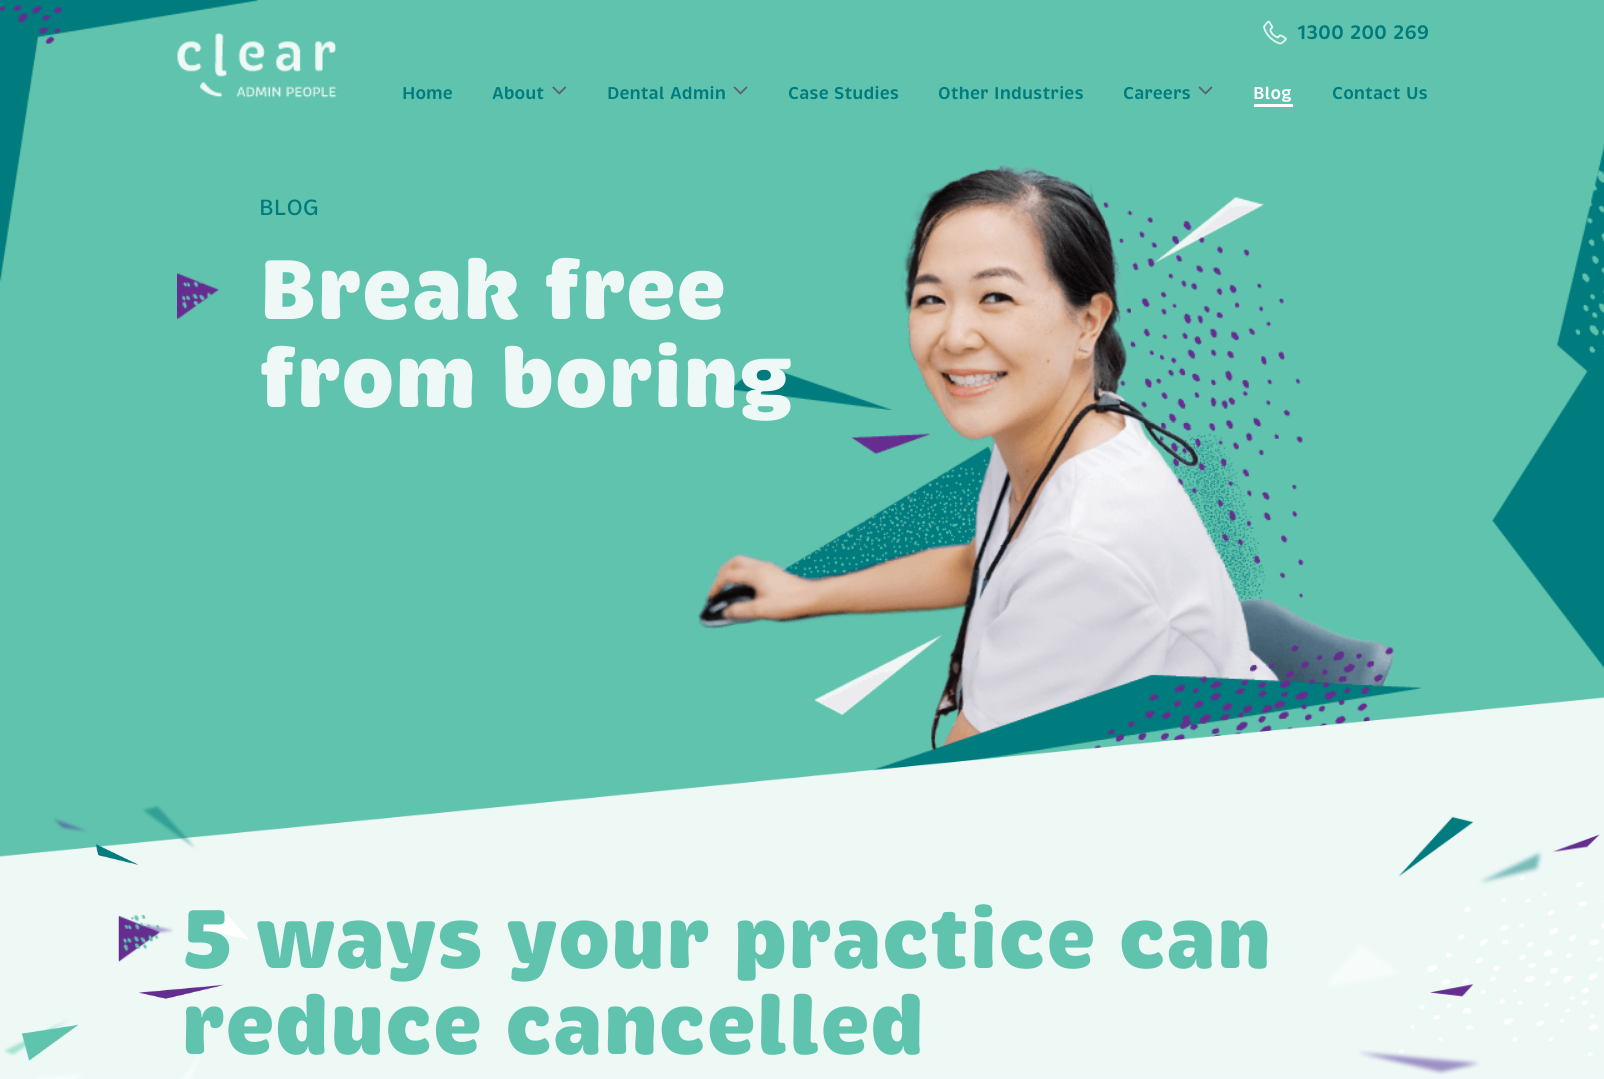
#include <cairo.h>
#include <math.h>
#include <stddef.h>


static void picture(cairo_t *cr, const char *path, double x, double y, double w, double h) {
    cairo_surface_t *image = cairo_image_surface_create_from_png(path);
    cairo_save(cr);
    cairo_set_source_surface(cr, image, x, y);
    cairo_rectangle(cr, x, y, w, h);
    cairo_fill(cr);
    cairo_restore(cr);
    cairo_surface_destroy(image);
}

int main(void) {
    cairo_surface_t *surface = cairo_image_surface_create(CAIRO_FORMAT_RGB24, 1604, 1079);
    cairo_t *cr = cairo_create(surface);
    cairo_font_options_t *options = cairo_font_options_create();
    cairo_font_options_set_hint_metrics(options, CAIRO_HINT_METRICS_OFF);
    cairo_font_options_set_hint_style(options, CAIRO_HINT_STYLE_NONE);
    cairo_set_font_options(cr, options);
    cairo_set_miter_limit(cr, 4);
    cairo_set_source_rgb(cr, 0.933, 0.976, 0.965);
    cairo_paint(cr);
    cairo_set_source_rgb(cr, 0.376, 0.765, 0.678);
    cairo_rectangle(cr, 0, 0, 1604, 857);
    cairo_fill(cr);
    picture(cr, "img5.png", 0, 0, 258, 282);
    picture(cr, "img1.png", 177, 33, 160, 65);
    picture(cr, "img2.png", 1263, 20, 24, 25);
    cairo_select_font_face(cr, "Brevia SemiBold", CAIRO_FONT_SLANT_NORMAL, CAIRO_FONT_WEIGHT_NORMAL);
    cairo_set_font_size(cr, 20);
    cairo_set_source_rgb(cr, 0, 0.482, 0.494);
    cairo_move_to(cr, 1297, 39);
    cairo_show_text(cr, "1300 200 269");
    cairo_set_font_size(cr, 17.5);
    cairo_move_to(cr, 402, 99);
    cairo_show_text(cr, "Home");
    cairo_move_to(cr, 492, 99);
    cairo_show_text(cr, "About");
    picture(cr, "img3.png", 552, 86, 15, 9);
    cairo_move_to(cr, 607, 99);
    cairo_show_text(cr, "Dental Admin");
    picture(cr, "img4.png", 733, 86, 15, 9);
    cairo_move_to(cr, 788, 99);
    cairo_show_text(cr, "Case Studies");
    cairo_move_to(cr, 938, 99);
    cairo_show_text(cr, "Other Industries");
    cairo_move_to(cr, 1123, 99);
    cairo_show_text(cr, "Careers");
    picture(cr, "img4.png", 1198, 86, 15, 9);
    cairo_set_source_rgb(cr, 1, 1, 1);
    cairo_move_to(cr, 1253, 99);
    cairo_show_text(cr, "Blog");
    cairo_rectangle(cr, 1254, 104, 39, 3);
    cairo_fill(cr);
    cairo_set_source_rgb(cr, 0, 0.482, 0.494);
    cairo_move_to(cr, 1332, 99);
    cairo_show_text(cr, "Contact Us");
    picture(cr, "img6.png", 177, 272, 42, 48);
    cairo_select_font_face(cr, "Brevia Medium", CAIRO_FONT_SLANT_NORMAL, CAIRO_FONT_WEIGHT_NORMAL);
    cairo_set_font_size(cr, 22.5);
    cairo_move_to(cr, 259, 215);
    cairo_show_text(cr, "BLOG");
    picture(cr, "img7.png", 697, 164, 725, 607);
    cairo_select_font_face(cr, "Brevia Black", CAIRO_FONT_SLANT_NORMAL, CAIRO_FONT_WEIGHT_NORMAL);
    cairo_set_font_size(cr, 86.25);
    cairo_set_source_rgb(cr, 0.933, 0.976, 0.965);
    cairo_move_to(cr, 259, 319);
    cairo_show_text(cr, "Break free");
    cairo_move_to(cr, 259, 407);
    cairo_show_text(cr, "from boring");
    picture(cr, "img8.png", 1492, 144, 112, 525);
    picture(cr, "img9.png", 0, 697, 1604, 376);
    picture(cr, "img10.png", 3, 805, 246, 274);
    picture(cr, "img11.png", 118, 915, 42, 47);
    cairo_set_font_size(cr, 85);
    cairo_set_source_rgb(cr, 0.376, 0.765, 0.678);
    cairo_move_to(cr, 181, 968);
    cairo_show_text(cr, "5 ways your practice can");
    cairo_move_to(cr, 181, 1054);
    cairo_show_text(cr, "reduce cancelled");
    picture(cr, "img12.png", 1327, 816, 277, 259);
    cairo_surface_write_to_png(surface, "page.png");
    cairo_font_options_destroy(options);
    cairo_destroy(cr);
    cairo_surface_destroy(surface);
    return 0;
}
